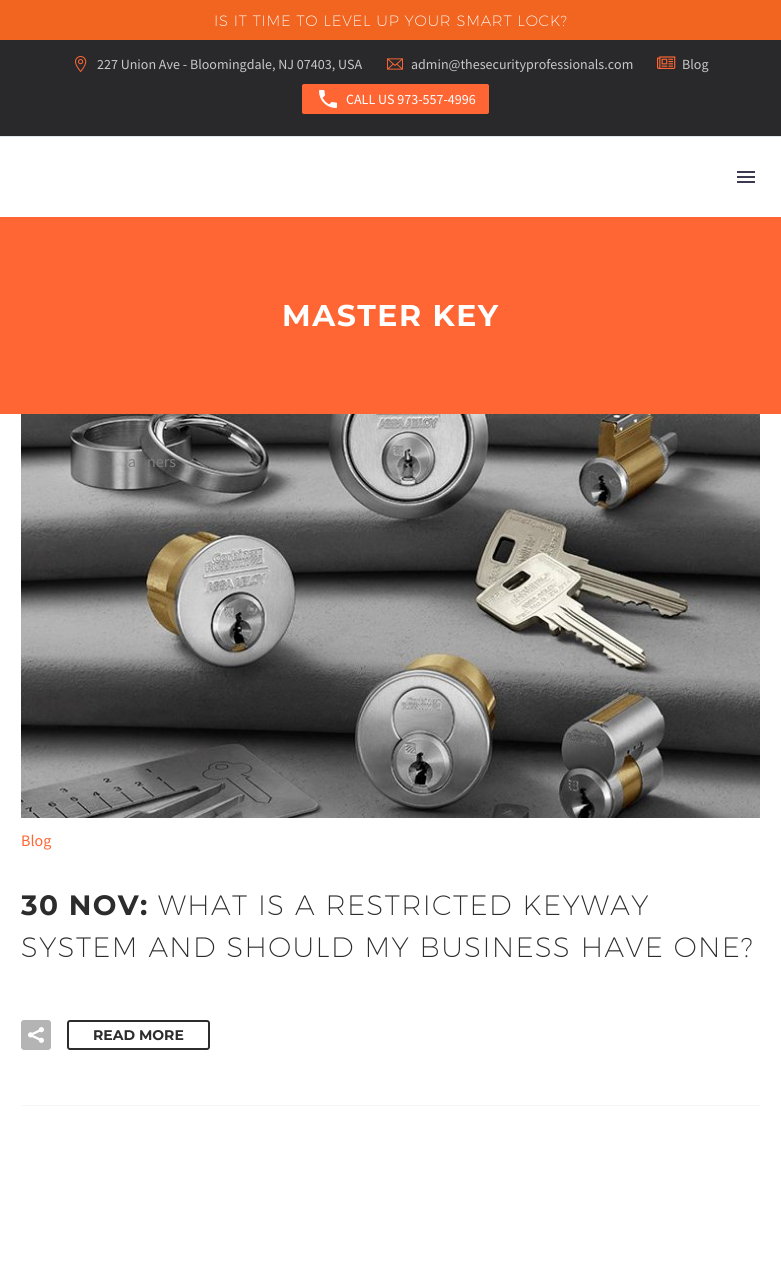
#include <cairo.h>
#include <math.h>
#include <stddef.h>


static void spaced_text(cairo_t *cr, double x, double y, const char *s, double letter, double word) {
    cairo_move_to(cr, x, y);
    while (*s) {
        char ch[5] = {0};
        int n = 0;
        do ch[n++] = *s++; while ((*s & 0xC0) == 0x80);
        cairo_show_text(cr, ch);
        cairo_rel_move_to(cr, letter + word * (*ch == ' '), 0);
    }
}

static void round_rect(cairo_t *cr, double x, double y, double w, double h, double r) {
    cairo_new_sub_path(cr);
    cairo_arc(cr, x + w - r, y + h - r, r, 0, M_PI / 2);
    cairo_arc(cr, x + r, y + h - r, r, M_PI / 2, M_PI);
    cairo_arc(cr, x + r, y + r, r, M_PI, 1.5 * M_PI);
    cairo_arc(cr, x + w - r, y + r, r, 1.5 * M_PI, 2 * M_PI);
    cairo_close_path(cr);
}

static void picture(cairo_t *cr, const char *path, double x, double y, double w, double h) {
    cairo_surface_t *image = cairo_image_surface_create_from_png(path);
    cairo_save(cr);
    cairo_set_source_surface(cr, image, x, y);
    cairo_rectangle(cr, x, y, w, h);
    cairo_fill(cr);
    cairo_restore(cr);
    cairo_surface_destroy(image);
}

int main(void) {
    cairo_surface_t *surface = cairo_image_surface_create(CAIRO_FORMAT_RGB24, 781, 1279);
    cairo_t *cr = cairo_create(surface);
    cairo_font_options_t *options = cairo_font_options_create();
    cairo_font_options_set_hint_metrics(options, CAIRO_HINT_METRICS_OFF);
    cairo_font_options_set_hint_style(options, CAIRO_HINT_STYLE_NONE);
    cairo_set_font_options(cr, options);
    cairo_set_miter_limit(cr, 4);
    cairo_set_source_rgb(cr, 1, 1, 1);
    cairo_paint(cr);
    cairo_set_source_rgb(cr, 0.945, 0.396, 0.129);
    cairo_rectangle(cr, 0, 0, 781, 40);
    cairo_fill(cr);
    cairo_select_font_face(cr, "Montserrat ExtraLight", CAIRO_FONT_SLANT_NORMAL, CAIRO_FONT_WEIGHT_NORMAL);
    cairo_set_font_size(cr, 15);
    cairo_set_source_rgb(cr, 1, 1, 1);
    spaced_text(cr, 214, 26, "IS IT TIME TO LEVEL UP YOUR SMART LOCK?", 0.75, 0);
    cairo_set_source_rgb(cr, 0.161, 0.161, 0.169);
    cairo_rectangle(cr, 0, 40, 781, 96);
    cairo_fill(cr);
    cairo_set_source_rgb(cr, 0.875, 0.898, 0.91);
    cairo_rectangle(cr, 0, 136, 781, 1);
    cairo_fill(cr);
    picture(cr, "img1.png", 75, 56, 6, 16);
    picture(cr, "img2.png", 81, 56, 6, 16);
    cairo_select_font_face(cr, "Source Sans Pro", CAIRO_FONT_SLANT_NORMAL, CAIRO_FONT_WEIGHT_NORMAL);
    cairo_set_font_size(cr, 14);
    cairo_set_source_rgb(cr, 0.784, 0.784, 0.784);
    cairo_move_to(cr, 97, 69);
    cairo_show_text(cr, "227 Union Ave - Bloomingdale, NJ 07403, USA");
    picture(cr, "img3.png", 387, 58, 8, 12);
    picture(cr, "img4.png", 395, 58, 8, 12);
    cairo_move_to(cr, 411, 69);
    cairo_show_text(cr, "admin@thesecurityprofessionals.com");
    picture(cr, "img5.png", 657, 56, 9, 13);
    picture(cr, "img6.png", 666, 56, 10, 13);
    cairo_move_to(cr, 682, 69);
    cairo_show_text(cr, "Blog");
    cairo_set_source_rgb(cr, 1, 0.4, 0.2);
    round_rect(cr, 302, 84, 187, 30, 2);
    cairo_fill(cr);
    picture(cr, "img7.png", 319, 90, 18, 18);
    cairo_set_source_rgb(cr, 1, 1, 1);
    cairo_move_to(cr, 346, 104);
    cairo_show_text(cr, "CALL US 973-557-4996");
    cairo_set_source_rgb(cr, 0.235, 0.224, 0.314);
    cairo_rectangle(cr, 737, 171, 18, 2);
    cairo_fill(cr);
    cairo_rectangle(cr, 737, 176, 18, 2);
    cairo_fill(cr);
    cairo_rectangle(cr, 737, 181, 18, 2);
    cairo_fill(cr);
    picture(cr, "img8.png", 21, 414, 739, 404);
    cairo_set_font_size(cr, 16);
    cairo_set_source_rgb(cr, 0.49, 0.49, 0.49);
    cairo_move_to(cr, 128, 467);
    cairo_show_text(cr, "a");
    cairo_move_to(cr, 147, 467);
    cairo_show_text(cr, "ners");
    cairo_set_source_rgb(cr, 1, 0.4, 0.2);
    cairo_rectangle(cr, 0, 217, 781, 197);
    cairo_fill(cr);
    cairo_select_font_face(cr, "Montserrat", CAIRO_FONT_SLANT_NORMAL, CAIRO_FONT_WEIGHT_BOLD);
    cairo_set_font_size(cr, 30);
    cairo_set_source_rgb(cr, 1, 1, 1);
    spaced_text(cr, 282, 326, "MASTER KEY", 1.5, 0);
    cairo_set_source_rgb(cr, 0.961, 0.961, 0.961);
    cairo_rectangle(cr, 21, 1105, 739, 1);
    cairo_fill(cr);
    cairo_select_font_face(cr, "Source Sans Pro", CAIRO_FONT_SLANT_NORMAL, CAIRO_FONT_WEIGHT_NORMAL);
    cairo_set_font_size(cr, 16);
    cairo_set_source_rgb(cr, 1, 0.4, 0.2);
    cairo_move_to(cr, 21, 846);
    cairo_show_text(cr, "Blog");
    cairo_select_font_face(cr, "Montserrat", CAIRO_FONT_SLANT_NORMAL, CAIRO_FONT_WEIGHT_BOLD);
    cairo_set_font_size(cr, 28);
    cairo_set_source_rgb(cr, 0.173, 0.173, 0.173);
    spaced_text(cr, 21, 915, "30 NOV:", 1.4, 0);
    cairo_select_font_face(cr, "Montserrat ExtraLight", CAIRO_FONT_SLANT_NORMAL, CAIRO_FONT_WEIGHT_NORMAL);
    spaced_text(cr, 158, 915, "WHAT IS A RESTRICTED KEYWAY", 1.4, 0);
    spaced_text(cr, 21, 957, "SYSTEM AND SHOULD MY BUSINESS HAVE ONE?", 1.4, 0);
    cairo_set_source_rgb(cr, 0.706, 0.706, 0.706);
    round_rect(cr, 21, 1020, 30, 30, 3);
    cairo_fill(cr);
    picture(cr, "img9.png", 28, 1027, 16, 16);
    round_rect(cr, 68, 1021, 141, 28, 2);
    cairo_set_source_rgb(cr, 0.173, 0.173, 0.173);
    cairo_stroke(cr);
    cairo_select_font_face(cr, "Montserrat", CAIRO_FONT_SLANT_NORMAL, CAIRO_FONT_WEIGHT_BOLD);
    cairo_set_font_size(cr, 14);
    cairo_move_to(cr, 93, 1040);
    cairo_show_text(cr, "READ MORE");
    cairo_surface_write_to_png(surface, "page.png");
    cairo_font_options_destroy(options);
    cairo_destroy(cr);
    cairo_surface_destroy(surface);
    return 0;
}
